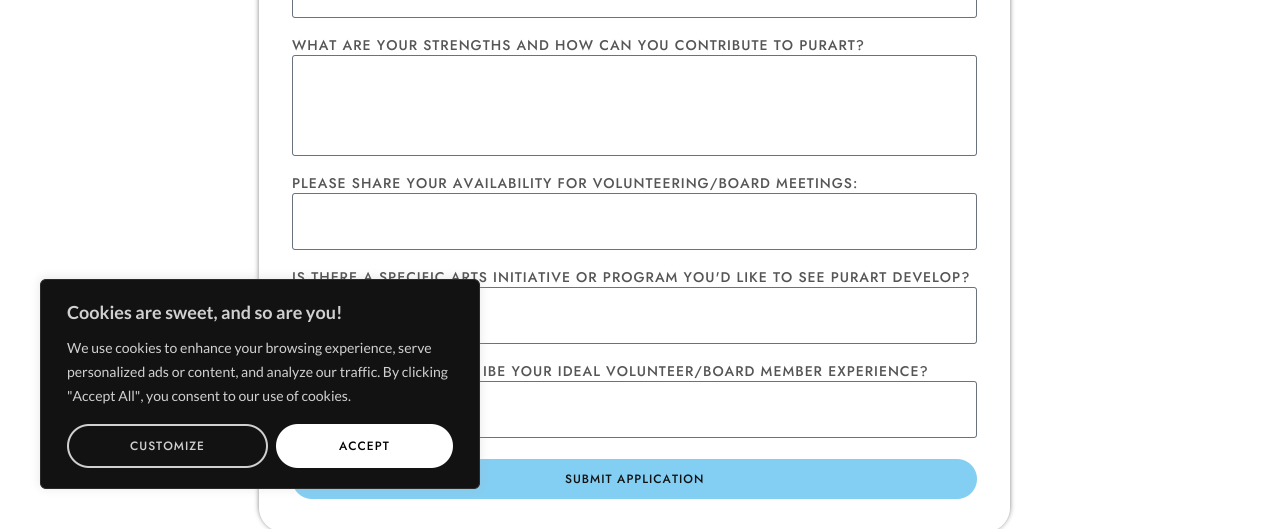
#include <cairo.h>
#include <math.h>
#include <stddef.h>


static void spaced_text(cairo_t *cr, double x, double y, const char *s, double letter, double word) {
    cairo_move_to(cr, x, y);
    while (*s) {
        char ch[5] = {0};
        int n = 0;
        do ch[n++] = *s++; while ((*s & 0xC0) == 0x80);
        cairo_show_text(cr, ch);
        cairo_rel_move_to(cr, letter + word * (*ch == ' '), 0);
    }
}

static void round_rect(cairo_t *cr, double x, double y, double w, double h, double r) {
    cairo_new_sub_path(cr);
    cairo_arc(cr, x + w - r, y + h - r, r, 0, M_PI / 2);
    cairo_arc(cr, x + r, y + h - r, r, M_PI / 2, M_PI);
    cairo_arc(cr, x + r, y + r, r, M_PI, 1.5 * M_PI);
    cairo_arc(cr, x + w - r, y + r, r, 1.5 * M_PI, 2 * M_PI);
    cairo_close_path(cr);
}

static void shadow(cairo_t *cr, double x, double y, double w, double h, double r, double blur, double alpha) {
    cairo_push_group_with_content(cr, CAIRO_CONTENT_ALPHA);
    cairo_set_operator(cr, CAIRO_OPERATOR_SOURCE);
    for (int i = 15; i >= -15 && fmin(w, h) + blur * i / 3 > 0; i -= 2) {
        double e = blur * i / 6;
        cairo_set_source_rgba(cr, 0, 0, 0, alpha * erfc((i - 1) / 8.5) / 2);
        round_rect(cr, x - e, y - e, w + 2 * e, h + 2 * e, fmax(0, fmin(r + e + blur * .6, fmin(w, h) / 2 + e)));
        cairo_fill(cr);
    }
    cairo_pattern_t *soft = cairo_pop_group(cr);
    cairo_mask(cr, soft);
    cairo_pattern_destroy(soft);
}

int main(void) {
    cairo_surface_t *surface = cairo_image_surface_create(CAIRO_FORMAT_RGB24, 1269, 529);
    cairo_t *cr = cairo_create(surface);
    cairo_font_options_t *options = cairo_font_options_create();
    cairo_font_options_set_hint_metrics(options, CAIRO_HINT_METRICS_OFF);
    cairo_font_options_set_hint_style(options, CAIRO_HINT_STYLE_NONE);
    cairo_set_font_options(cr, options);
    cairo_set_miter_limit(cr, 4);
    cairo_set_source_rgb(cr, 1, 1, 1);
    cairo_paint(cr);
    cairo_save(cr);
    cairo_set_fill_rule(cr, CAIRO_FILL_RULE_EVEN_ODD);
    cairo_new_path(cr);
    cairo_move_to(cr, 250, 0);
    cairo_line_to(cr, 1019, 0);
    cairo_line_to(cr, 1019, 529);
    cairo_line_to(cr, 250, 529);
    cairo_close_path(cr);
    cairo_move_to(cr, 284, -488);
    cairo_line_to(cr, 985, -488);
    cairo_curve_to(cr, 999, -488, 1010, -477, 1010, -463);
    cairo_line_to(cr, 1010, 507);
    cairo_curve_to(cr, 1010, 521, 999, 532, 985, 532);
    cairo_line_to(cr, 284, 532);
    cairo_curve_to(cr, 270, 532, 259, 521, 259, 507);
    cairo_line_to(cr, 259, -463);
    cairo_curve_to(cr, 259, -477, 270, -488, 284, -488);
    cairo_close_path(cr);
    cairo_clip(cr);
    cairo_set_source_rgb(cr, 0, 0, 0);
    shadow(cr, 259, -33, 751, 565, 25, 2.5, 0.5);
    cairo_restore(cr);
    round_rect(cr, 292.5, 287.5, 684, 56, 2.5);
    cairo_set_source_rgb(cr, 0.412, 0.447, 0.49);
    cairo_set_line_width(cr, 1);
    cairo_stroke(cr);
    round_rect(cr, 292.5, 381.5, 684, 56, 2.5);
    cairo_stroke(cr);
    cairo_set_source_rgb(cr, 0.514, 0.808, 0.953);
    round_rect(cr, 292, 459, 685, 40, 20);
    cairo_fill(cr);
    cairo_set_source_rgb(cr, 0.675, 0.671, 0.671);
    shadow(cr, 40, 278, 440, 210, 6, 5, 0.3);
    cairo_select_font_face(cr, "Jost Medium", CAIRO_FONT_SLANT_NORMAL, CAIRO_FONT_WEIGHT_NORMAL);
    cairo_set_font_size(cr, 14);
    cairo_set_source_rgb(cr, 0.333, 0.333, 0.333);
    spaced_text(cr, 292, 282, "IS THERE A SPECIFIC ARTS INITIATIVE OR PROGRAM YOU'D LIKE TO SEE PURART DEVELOP?", 1, 0);
    cairo_set_source_rgb(cr, 0.071, 0.071, 0.071);
    round_rect(cr, 40.5, 279.5, 439, 209, 5.5);
    cairo_fill_preserve(cr);
    cairo_set_source_rgb(cr, 0.165, 0.165, 0.165);
    cairo_stroke(cr);
    cairo_select_font_face(cr, "Lato", CAIRO_FONT_SLANT_NORMAL, CAIRO_FONT_WEIGHT_BOLD);
    cairo_set_font_size(cr, 18);
    cairo_set_source_rgb(cr, 0.816, 0.816, 0.816);
    cairo_move_to(cr, 67, 319);
    cairo_show_text(cr, "Cookies are sweet, and so are you!");
    cairo_select_font_face(cr, "Lato", CAIRO_FONT_SLANT_NORMAL, CAIRO_FONT_WEIGHT_NORMAL);
    cairo_set_font_size(cr, 14);
    cairo_move_to(cr, 67, 353);
    cairo_show_text(cr, "We use cookies to enhance your browsing experience, serve");
    cairo_move_to(cr, 67, 377);
    cairo_show_text(cr, "personalized ads or content, and analyze our traffic. By clicking");
    cairo_move_to(cr, 67, 401);
    cairo_show_text(cr, "\"Accept All\", you consent to our use of cookies.");
    round_rect(cr, 68, 425, 199, 42, 21);
    cairo_set_line_width(cr, 2);
    cairo_stroke(cr);
    cairo_select_font_face(cr, "Jost Medium", CAIRO_FONT_SLANT_NORMAL, CAIRO_FONT_WEIGHT_NORMAL);
    cairo_set_font_size(cr, 12);
    spaced_text(cr, 130, 450, "CUSTOMIZE", 1, 0);
    cairo_set_source_rgb(cr, 1, 1, 1);
    round_rect(cr, 277, 425, 175, 42, 21);
    cairo_fill_preserve(cr);
    cairo_stroke(cr);
    cairo_set_source_rgb(cr, 0, 0, 0);
    spaced_text(cr, 339, 450, "ACCEPT", 1, 0);
    round_rect(cr, 292.5, -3.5, 684, 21, 2.5);
    cairo_set_source_rgb(cr, 0.412, 0.447, 0.49);
    cairo_set_line_width(cr, 1);
    cairo_stroke(cr);
    cairo_set_font_size(cr, 14);
    cairo_set_source_rgb(cr, 0.333, 0.333, 0.333);
    spaced_text(cr, 292, 50, "WHAT ARE YOUR STRENGTHS AND HOW CAN YOU CONTRIBUTE TO PURART?", 1, 0);
    round_rect(cr, 292.5, 55.5, 684, 100, 2.5);
    cairo_set_source_rgb(cr, 0.412, 0.447, 0.49);
    cairo_stroke(cr);
    cairo_set_source_rgb(cr, 0.333, 0.333, 0.333);
    spaced_text(cr, 292, 188, "PLEASE SHARE YOUR AVAILABILITY FOR VOLUNTEERING/BOARD MEETINGS:", 1, 0);
    round_rect(cr, 292.5, 193.5, 684, 56, 2.5);
    cairo_set_source_rgb(cr, 0.412, 0.447, 0.49);
    cairo_stroke(cr);
    cairo_set_source_rgb(cr, 0.333, 0.333, 0.333);
    spaced_text(cr, 483, 376, "IBE YOUR IDEAL VOLUNTEER/BOARD MEMBER EXPERIENCE?", 1, 0);
    cairo_set_font_size(cr, 12);
    cairo_set_source_rgb(cr, 0.067, 0.067, 0.067);
    spaced_text(cr, 565, 483, "SUBMIT APPLICATION", 1, 0);
    cairo_surface_write_to_png(surface, "page.png");
    cairo_font_options_destroy(options);
    cairo_destroy(cr);
    cairo_surface_destroy(surface);
    return 0;
}
